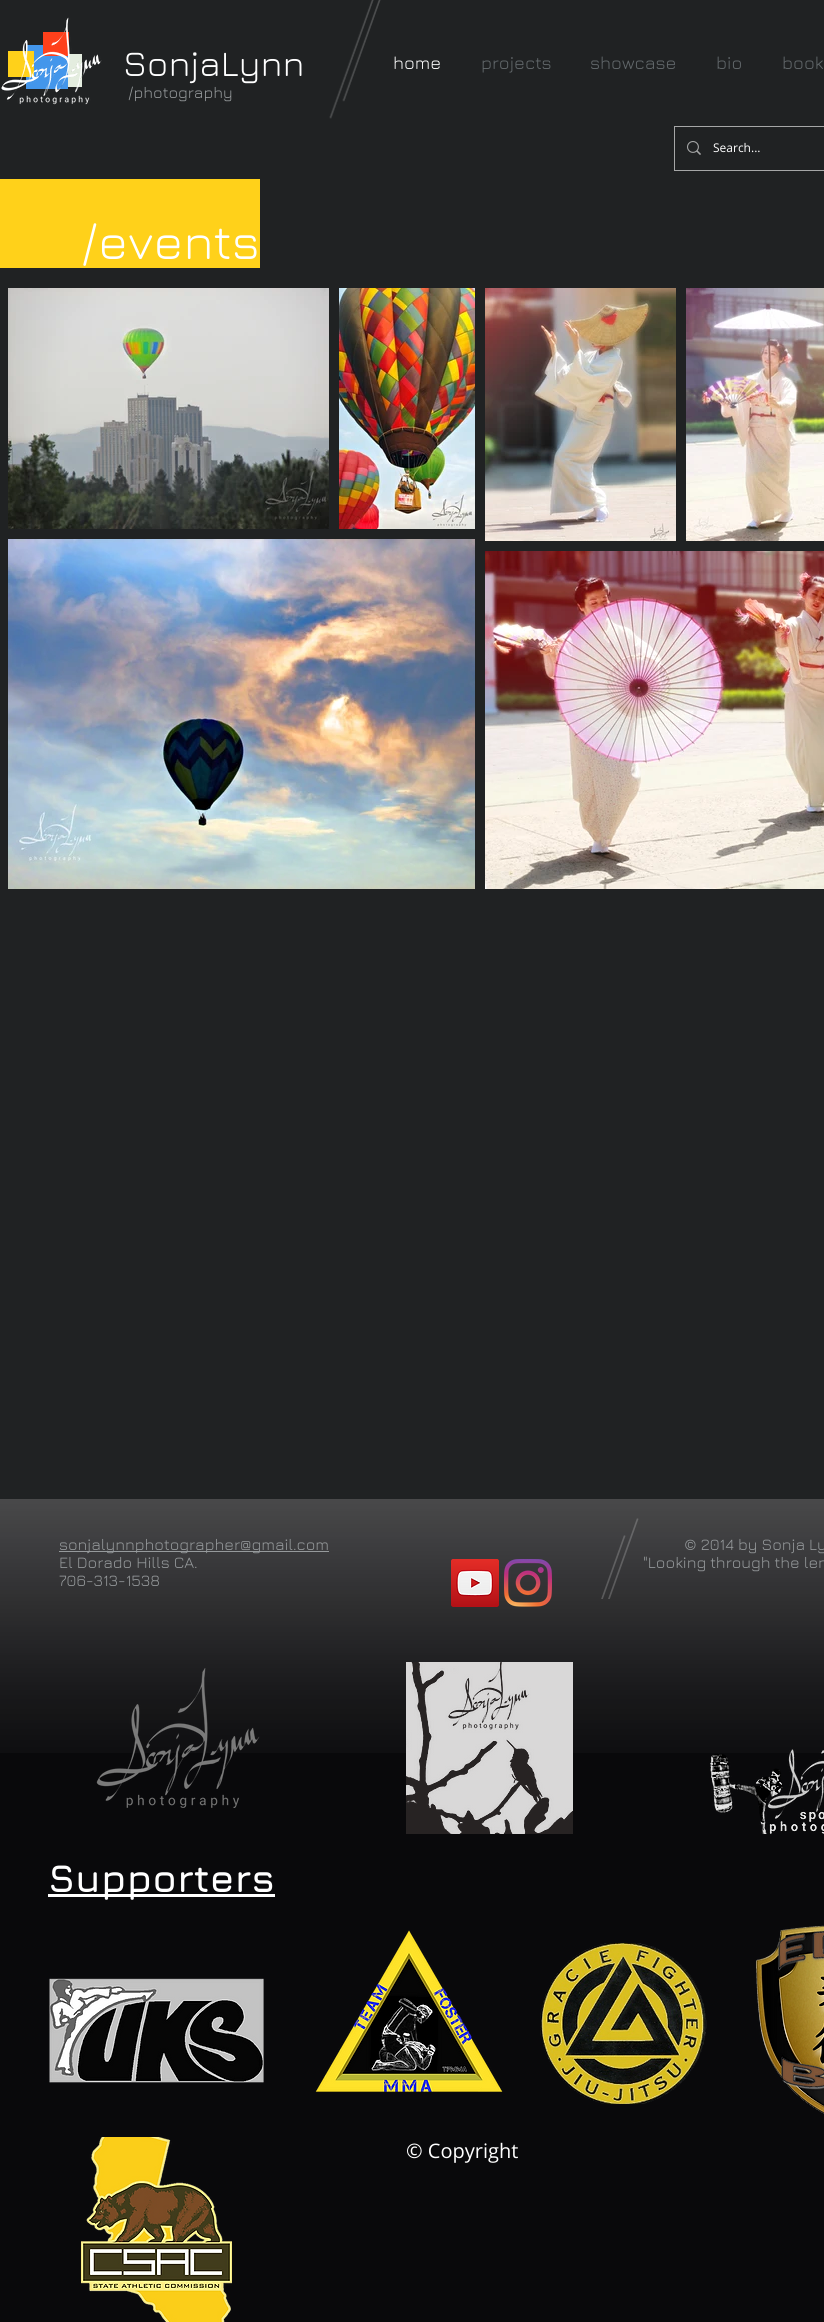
#include <cairo.h>
#include <math.h>
#include <stddef.h>


static void picture(cairo_t *cr, const char *path, double x, double y, double w, double h) {
    cairo_surface_t *image = cairo_image_surface_create_from_png(path);
    cairo_save(cr);
    cairo_set_source_surface(cr, image, x, y);
    cairo_rectangle(cr, x, y, w, h);
    cairo_fill(cr);
    cairo_restore(cr);
    cairo_surface_destroy(image);
}

int main(void) {
    cairo_surface_t *surface = cairo_image_surface_create(CAIRO_FORMAT_RGB24, 824, 2322);
    cairo_t *cr = cairo_create(surface);
    cairo_font_options_t *options = cairo_font_options_create();
    cairo_font_options_set_hint_metrics(options, CAIRO_HINT_METRICS_OFF);
    cairo_font_options_set_hint_style(options, CAIRO_HINT_STYLE_NONE);
    cairo_set_font_options(cr, options);
    cairo_set_miter_limit(cr, 4);
    cairo_set_source_rgb(cr, 0.125, 0.133, 0.137);
    cairo_paint(cr);
    cairo_set_source_rgb(cr, 0.263, 0.588, 0.918);
    cairo_rectangle(cr, 26, 45, 42, 44);
    cairo_fill(cr);
    cairo_set_source_rgb(cr, 0.894, 0.929, 0.875);
    cairo_rectangle(cr, 68, 54, 14, 33);
    cairo_fill(cr);
    cairo_set_source_rgb(cr, 1, 0.251, 0.106);
    cairo_rectangle(cr, 43, 32, 26, 24);
    cairo_fill(cr);
    cairo_set_source_rgb(cr, 1, 0.82, 0.102);
    cairo_rectangle(cr, 8, 51, 26, 26);
    cairo_fill(cr);
    picture(cr, "img1.png", 1, 17, 101, 88);
    picture(cr, "img2.png", 329, 0, 52, 119);
    cairo_select_font_face(cr, "Jura", CAIRO_FONT_SLANT_NORMAL, CAIRO_FONT_WEIGHT_NORMAL);
    cairo_set_font_size(cr, 36);
    cairo_set_source_rgb(cr, 1, 1, 1);
    cairo_move_to(cr, 123, 76);
    cairo_show_text(cr, "SonjaLynn");
    cairo_set_font_size(cr, 18);
    cairo_move_to(cr, 393, 69);
    cairo_show_text(cr, "home");
    cairo_set_source_rgb(cr, 0.384, 0.408, 0.42);
    cairo_move_to(cr, 481, 69);
    cairo_show_text(cr, "projects");
    cairo_move_to(cr, 590, 69);
    cairo_show_text(cr, "showcase");
    cairo_move_to(cr, 716, 69);
    cairo_show_text(cr, "bio");
    cairo_move_to(cr, 782, 69);
    cairo_show_text(cr, "book");
    cairo_set_font_size(cr, 16);
    cairo_set_source_rgb(cr, 0.588, 0.604, 0.612);
    cairo_move_to(cr, 128, 98);
    cairo_show_text(cr, "/photography");
    cairo_rectangle(cr, 674.5, 126.5, 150, 44);
    cairo_set_source_rgb(cr, 0.651, 0.655, 0.655);
    cairo_set_line_width(cr, 1);
    cairo_stroke(cr);
    picture(cr, "img3.png", 687, 141, 14, 14);
    cairo_select_font_face(cr, "Open Sans", CAIRO_FONT_SLANT_NORMAL, CAIRO_FONT_WEIGHT_NORMAL);
    cairo_set_font_size(cr, 12);
    cairo_set_source_rgb(cr, 1, 1, 1);
    cairo_move_to(cr, 713, 152);
    cairo_show_text(cr, "Search...");
    cairo_set_source_rgb(cr, 1, 0.82, 0.102);
    cairo_rectangle(cr, 0, 179, 260, 89);
    cairo_fill(cr);
    cairo_select_font_face(cr, "Jura", CAIRO_FONT_SLANT_NORMAL, CAIRO_FONT_WEIGHT_NORMAL);
    cairo_set_font_size(cr, 50);
    cairo_set_source_rgb(cr, 1, 1, 1);
    cairo_move_to(cr, 81, 259);
    cairo_show_text(cr, "/events");
    picture(cr, "img4.png", 8, 288, 321, 241);
    picture(cr, "img5.png", 339, 288, 136, 241);
    picture(cr, "img6.png", 485, 288, 191, 253);
    picture(cr, "img7.png", 686, 288, 138, 253);
    picture(cr, "img8.png", 8, 539, 467, 350);
    picture(cr, "img9.png", 485, 551, 339, 338);
    cairo_set_source_rgb(cr, 0.039, 0.039, 0.043);
    cairo_rectangle(cr, 0, 1499, 824, 823);
    cairo_fill(cr);
    picture(cr, "img10.png", 0, 1499, 824, 254);
    cairo_set_source_rgb(cr, 0.588, 0.604, 0.612);
    cairo_rectangle(cr, 59, 1551, 270, 1);
    cairo_fill(cr);
    cairo_set_font_size(cr, 16);
    cairo_move_to(cr, 59, 1550);
    cairo_show_text(cr, "sonjalynnphotographer@gmail.com");
    cairo_move_to(cr, 59, 1568);
    cairo_show_text(cr, "El Dorado Hills CA.");
    cairo_move_to(cr, 59, 1586);
    cairo_show_text(cr, "706-313-1538");
    picture(cr, "img11.png", 601, 1518, 38, 81);
    cairo_move_to(cr, 684, 1550);
    cairo_show_text(cr, "© 2014 by Sonja Ly");
    cairo_move_to(cr, 643, 1568);
    cairo_show_text(cr, "\"Looking through the len");
    picture(cr, "img12.png", 451, 1559, 48, 48);
    picture(cr, "img13.png", 504, 1559, 48, 48);
    picture(cr, "img14.png", 96, 1668, 164, 140);
    picture(cr, "img15.png", 406, 1662, 167, 172);
    picture(cr, "img16.png", 710, 1749, 114, 85);
    cairo_set_source_rgb(cr, 1, 1, 1);
    cairo_rectangle(cr, 48, 1894, 227, 3);
    cairo_fill(cr);
    cairo_select_font_face(cr, "Jura", CAIRO_FONT_SLANT_NORMAL, CAIRO_FONT_WEIGHT_BOLD);
    cairo_set_font_size(cr, 39);
    cairo_move_to(cr, 48, 1892);
    cairo_show_text(cr, "Supporters");
    picture(cr, "img17.png", 49, 1978, 215, 105);
    picture(cr, "img18.png", 315, 1930, 188, 162);
    picture(cr, "img19.png", 540, 1943, 167, 161);
    picture(cr, "img20.png", 756, 1925, 68, 189);
    picture(cr, "img21.png", 81, 2137, 151, 185);
    cairo_select_font_face(cr, "Open Sans", CAIRO_FONT_SLANT_NORMAL, CAIRO_FONT_WEIGHT_NORMAL);
    cairo_set_font_size(cr, 20);
    cairo_move_to(cr, 406, 2158);
    cairo_show_text(cr, "© Copyright");
    cairo_surface_write_to_png(surface, "page.png");
    cairo_font_options_destroy(options);
    cairo_destroy(cr);
    cairo_surface_destroy(surface);
    return 0;
}
